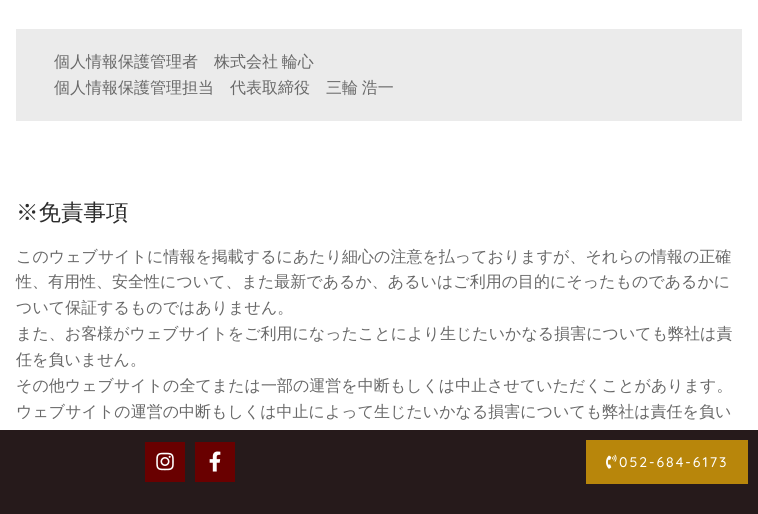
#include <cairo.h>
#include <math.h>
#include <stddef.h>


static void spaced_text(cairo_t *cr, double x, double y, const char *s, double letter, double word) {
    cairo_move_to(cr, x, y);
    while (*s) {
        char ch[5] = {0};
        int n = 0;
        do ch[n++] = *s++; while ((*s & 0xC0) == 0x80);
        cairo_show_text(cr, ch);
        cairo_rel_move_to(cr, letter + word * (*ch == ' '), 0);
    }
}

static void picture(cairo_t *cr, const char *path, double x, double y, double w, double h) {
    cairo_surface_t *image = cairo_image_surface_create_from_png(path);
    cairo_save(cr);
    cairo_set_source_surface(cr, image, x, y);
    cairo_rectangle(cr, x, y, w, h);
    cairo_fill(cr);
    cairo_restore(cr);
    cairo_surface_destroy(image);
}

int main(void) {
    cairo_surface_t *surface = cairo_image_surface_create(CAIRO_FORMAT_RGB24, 758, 514);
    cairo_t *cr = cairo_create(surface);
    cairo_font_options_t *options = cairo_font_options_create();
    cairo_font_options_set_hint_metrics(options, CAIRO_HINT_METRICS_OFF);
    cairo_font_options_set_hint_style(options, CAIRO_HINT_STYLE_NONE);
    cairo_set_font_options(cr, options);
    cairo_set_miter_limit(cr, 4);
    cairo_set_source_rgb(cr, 1, 1, 1);
    cairo_paint(cr);
    cairo_set_source_rgb(cr, 0.918, 0.918, 0.918);
    cairo_rectangle(cr, 16, 29, 726, 92);
    cairo_fill(cr);
    cairo_select_font_face(cr, "WenQuanYi Zen Hei Medium", CAIRO_FONT_SLANT_NORMAL, CAIRO_FONT_WEIGHT_NORMAL);
    cairo_set_font_size(cr, 16);
    cairo_set_source_rgb(cr, 0.408, 0.408, 0.408);
    spaced_text(cr, 54, 67, "個人情報保護管理者　株式会社 輪心", 0, -1);
    spaced_text(cr, 54, 93, "個人情報保護管理担当　代表取締役　三輪 浩一", 0, -1);
    cairo_set_font_size(cr, 22.5);
    cairo_set_source_rgb(cr, 0.169, 0.169, 0.169);
    cairo_move_to(cr, 16, 220);
    cairo_show_text(cr, "※免責事項");
    cairo_set_font_size(cr, 16);
    cairo_set_source_rgb(cr, 0.408, 0.408, 0.408);
    cairo_move_to(cr, 16, 262);
    cairo_show_text(cr, "このウェブサイトに情報を掲載するにあたり細心の注意を払っておりますが、それらの情報の正確");
    cairo_move_to(cr, 16, 287);
    cairo_show_text(cr, "性、有用性、安全性について、また最新であるか、あるいはご利用の目的にそったものであるかに");
    cairo_move_to(cr, 16, 313);
    cairo_show_text(cr, "ついて保証するものではありません。");
    cairo_move_to(cr, 16, 339);
    cairo_show_text(cr, "また、お客様がウェブサイトをご利用になったことにより生じたいかなる損害についても弊社は責");
    cairo_move_to(cr, 16, 365);
    cairo_show_text(cr, "任を負いません。");
    cairo_move_to(cr, 16, 391);
    cairo_show_text(cr, "その他ウェブサイトの全てまたは一部の運営を中断もしくは中止させていただくことがあります。");
    cairo_move_to(cr, 16, 417);
    cairo_show_text(cr, "ウェブサイトの運営の中断もしくは中止によって生じたいかなる損害についても弊社は責任を負い");
    cairo_set_source_rgb(cr, 0.149, 0.102, 0.106);
    cairo_rectangle(cr, 0, 430, 758, 84);
    cairo_fill(cr);
    cairo_set_source_rgb(cr, 0.412, 0, 0);
    cairo_rectangle(cr, 145, 442, 40, 40);
    cairo_fill(cr);
    picture(cr, "img1.png", 156, 452, 18, 19);
    cairo_rectangle(cr, 195, 442, 40, 40);
    cairo_fill(cr);
    picture(cr, "img2.png", 209, 451, 12, 21);
    cairo_set_source_rgb(cr, 0.722, 0.525, 0.043);
    cairo_rectangle(cr, 586, 440, 162, 44);
    cairo_fill(cr);
    picture(cr, "img3.png", 606, 454, 11, 15);
    cairo_select_font_face(cr, "Quicksand Medium", CAIRO_FONT_SLANT_NORMAL, CAIRO_FONT_WEIGHT_NORMAL);
    cairo_set_font_size(cr, 14);
    cairo_set_source_rgb(cr, 1, 1, 1);
    spaced_text(cr, 619, 467, "052-684-6173", 2, 0);
    cairo_surface_write_to_png(surface, "page.png");
    cairo_font_options_destroy(options);
    cairo_destroy(cr);
    cairo_surface_destroy(surface);
    return 0;
}
